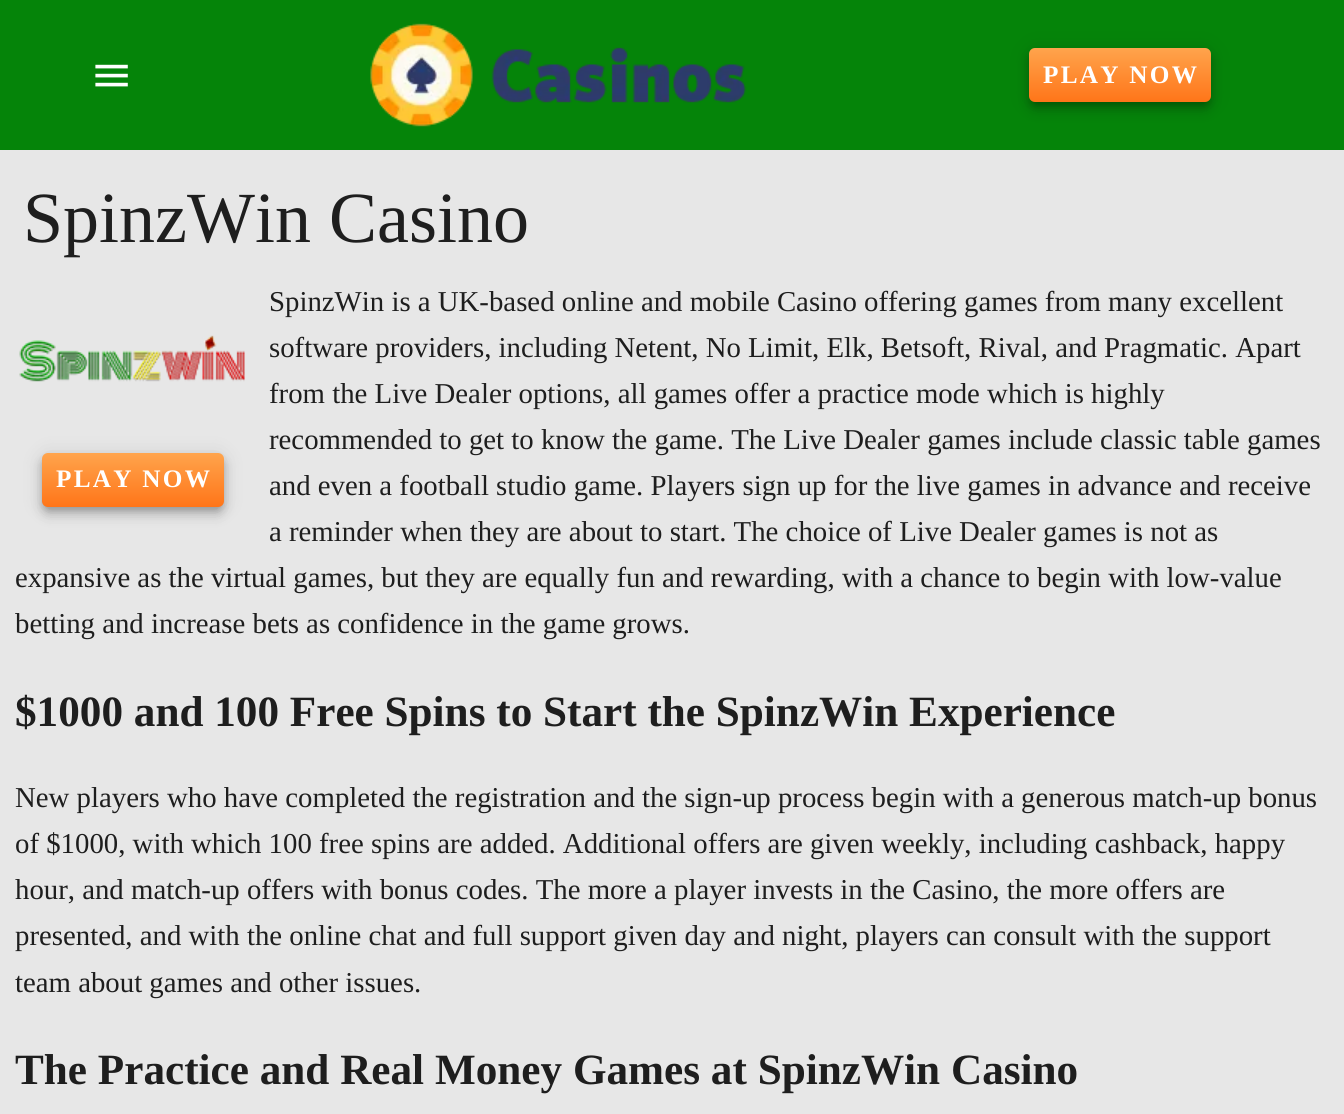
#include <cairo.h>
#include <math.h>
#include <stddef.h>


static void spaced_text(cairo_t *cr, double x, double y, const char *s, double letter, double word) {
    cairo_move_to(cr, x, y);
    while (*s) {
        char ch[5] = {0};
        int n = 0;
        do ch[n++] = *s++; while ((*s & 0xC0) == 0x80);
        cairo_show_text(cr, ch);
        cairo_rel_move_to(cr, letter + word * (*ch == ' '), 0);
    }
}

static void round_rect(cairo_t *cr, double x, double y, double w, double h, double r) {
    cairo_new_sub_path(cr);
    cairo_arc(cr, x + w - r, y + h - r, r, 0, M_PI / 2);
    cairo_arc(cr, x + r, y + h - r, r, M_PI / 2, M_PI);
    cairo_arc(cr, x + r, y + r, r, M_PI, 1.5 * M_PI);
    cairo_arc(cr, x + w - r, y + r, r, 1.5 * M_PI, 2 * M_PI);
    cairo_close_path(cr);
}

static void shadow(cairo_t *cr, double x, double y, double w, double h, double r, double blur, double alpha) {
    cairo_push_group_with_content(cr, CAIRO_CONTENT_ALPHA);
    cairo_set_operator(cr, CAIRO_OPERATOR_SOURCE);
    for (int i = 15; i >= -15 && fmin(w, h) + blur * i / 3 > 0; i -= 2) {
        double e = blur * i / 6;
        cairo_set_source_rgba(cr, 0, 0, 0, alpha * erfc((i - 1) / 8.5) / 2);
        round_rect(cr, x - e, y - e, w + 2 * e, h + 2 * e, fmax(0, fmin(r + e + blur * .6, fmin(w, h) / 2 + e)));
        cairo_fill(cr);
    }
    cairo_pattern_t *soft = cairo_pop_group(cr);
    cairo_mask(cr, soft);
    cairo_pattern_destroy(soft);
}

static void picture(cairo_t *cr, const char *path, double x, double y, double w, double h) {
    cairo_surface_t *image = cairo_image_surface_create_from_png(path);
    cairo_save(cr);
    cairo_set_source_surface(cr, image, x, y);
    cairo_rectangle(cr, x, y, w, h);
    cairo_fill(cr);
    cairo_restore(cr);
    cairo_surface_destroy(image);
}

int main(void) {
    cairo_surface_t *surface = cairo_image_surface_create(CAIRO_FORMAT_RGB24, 1344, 1114);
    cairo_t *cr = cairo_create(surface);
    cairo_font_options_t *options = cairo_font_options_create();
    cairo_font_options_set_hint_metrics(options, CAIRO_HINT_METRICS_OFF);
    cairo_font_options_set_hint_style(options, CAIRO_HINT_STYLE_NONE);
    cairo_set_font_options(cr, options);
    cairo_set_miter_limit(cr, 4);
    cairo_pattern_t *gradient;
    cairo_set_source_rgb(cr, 0.906, 0.906, 0.906);
    cairo_paint(cr);
    cairo_set_source_rgb(cr, 0.02, 0.518, 0.039);
    cairo_rectangle(cr, 0, 0, 1344, 150);
    cairo_fill(cr);
    picture(cr, "img1.png", 95, 64, 33, 23);
    picture(cr, "img2.png", 370, 23, 376, 104);
    cairo_set_source_rgb(cr, 0, 0, 0);
    shadow(cr, 1029, 50, 182, 54, 6, 10.5, 0.12);
    shadow(cr, 1029, 56, 182, 54, 6, 6, 0.14);
    shadow(cr, 1031, 54, 178, 51, 5, 4, 0.2);
    gradient = cairo_pattern_create_linear(1120, 48, 1120, 102);
    cairo_pattern_add_color_stop_rgba(gradient, 0, 1, 0.643, 0.298, 1);
    cairo_pattern_add_color_stop_rgba(gradient, 1, 1, 0.459, 0.098, 1);
    cairo_set_source(cr, gradient);
    cairo_pattern_destroy(gradient);
    round_rect(cr, 1029, 48, 182, 54, 6);
    cairo_fill(cr);
    cairo_select_font_face(cr, "Liberation Serif", CAIRO_FONT_SLANT_NORMAL, CAIRO_FONT_WEIGHT_BOLD);
    cairo_set_font_size(cr, 25.25);
    cairo_set_source_rgb(cr, 1, 1, 1);
    spaced_text(cr, 1043, 83, "PLAY NOW", 2.25, 0);
    cairo_select_font_face(cr, "Liberation Serif", CAIRO_FONT_SLANT_NORMAL, CAIRO_FONT_WEIGHT_NORMAL);
    cairo_set_font_size(cr, 72);
    cairo_set_source_rgb(cr, 0.118, 0.118, 0.118);
    cairo_move_to(cr, 23, 242);
    cairo_show_text(cr, "SpinzWin Casino");
    cairo_set_font_size(cr, 28.8);
    cairo_move_to(cr, 269, 311);
    cairo_show_text(cr, "SpinzWin is a UK-based online and mobile Casino offering games from many excellent");
    cairo_move_to(cr, 269, 357);
    cairo_show_text(cr, "software providers, including Netent, No Limit, Elk, Betsoft, Rival, and Pragmatic. Apart");
    cairo_move_to(cr, 269, 403);
    cairo_show_text(cr, "from the Live Dealer options, all games offer a practice mode which is highly");
    cairo_move_to(cr, 269, 449);
    cairo_show_text(cr, "recommended to get to know the game. The Live Dealer games include classic table games");
    cairo_move_to(cr, 269, 495);
    cairo_show_text(cr, "and even a football studio game. Players sign up for the live games in advance and receive");
    cairo_move_to(cr, 269, 541);
    cairo_show_text(cr, "a reminder when they are about to start. The choice of Live Dealer games is not as");
    cairo_move_to(cr, 15, 587);
    cairo_show_text(cr, "expansive as the virtual games, but they are equally fun and rewarding, with a chance to begin with low-value");
    cairo_move_to(cr, 15, 633);
    cairo_show_text(cr, "betting and increase bets as confidence in the game grows.");
    cairo_select_font_face(cr, "Liberation Serif", CAIRO_FONT_SLANT_NORMAL, CAIRO_FONT_WEIGHT_BOLD);
    cairo_set_font_size(cr, 43.2);
    cairo_move_to(cr, 15, 726);
    cairo_show_text(cr, "$1000 and 100 Free Spins to Start the SpinzWin Experience");
    cairo_select_font_face(cr, "Liberation Serif", CAIRO_FONT_SLANT_NORMAL, CAIRO_FONT_WEIGHT_NORMAL);
    cairo_set_font_size(cr, 28.8);
    cairo_move_to(cr, 15, 807);
    cairo_show_text(cr, "New players who have completed the registration and the sign-up process begin with a generous match-up bonus");
    cairo_move_to(cr, 15, 853);
    cairo_show_text(cr, "of $1000, with which 100 free spins are added. Additional offers are given weekly, including cashback, happy");
    cairo_move_to(cr, 15, 899);
    cairo_show_text(cr, "hour, and match-up offers with bonus codes. The more a player invests in the Casino, the more offers are");
    cairo_move_to(cr, 15, 945);
    cairo_show_text(cr, "presented, and with the online chat and full support given day and night, players can consult with the support");
    cairo_move_to(cr, 15, 992);
    cairo_show_text(cr, "team about games and other issues.");
    cairo_select_font_face(cr, "Liberation Serif", CAIRO_FONT_SLANT_NORMAL, CAIRO_FONT_WEIGHT_BOLD);
    cairo_set_font_size(cr, 43.2);
    cairo_move_to(cr, 15, 1084);
    cairo_show_text(cr, "The Practice and Real Money Games at SpinzWin Casino");
    picture(cr, "img3.png", 19, 335, 226, 47);
    cairo_set_source_rgb(cr, 0, 0, 0);
    shadow(cr, 42, 455, 182, 54, 6, 10.5, 0.12);
    shadow(cr, 42, 461, 182, 54, 6, 6, 0.14);
    shadow(cr, 44, 459, 178, 51, 5, 4, 0.2);
    gradient = cairo_pattern_create_linear(133, 453, 133, 507);
    cairo_pattern_add_color_stop_rgba(gradient, 0, 1, 0.643, 0.298, 1);
    cairo_pattern_add_color_stop_rgba(gradient, 1, 1, 0.459, 0.098, 1);
    cairo_set_source(cr, gradient);
    cairo_pattern_destroy(gradient);
    round_rect(cr, 42, 453, 182, 54, 6);
    cairo_fill(cr);
    cairo_set_font_size(cr, 25.25);
    cairo_set_source_rgb(cr, 1, 1, 1);
    spaced_text(cr, 56, 487, "PLAY NOW", 2.25, 0);
    cairo_surface_write_to_png(surface, "page.png");
    cairo_font_options_destroy(options);
    cairo_destroy(cr);
    cairo_surface_destroy(surface);
    return 0;
}
